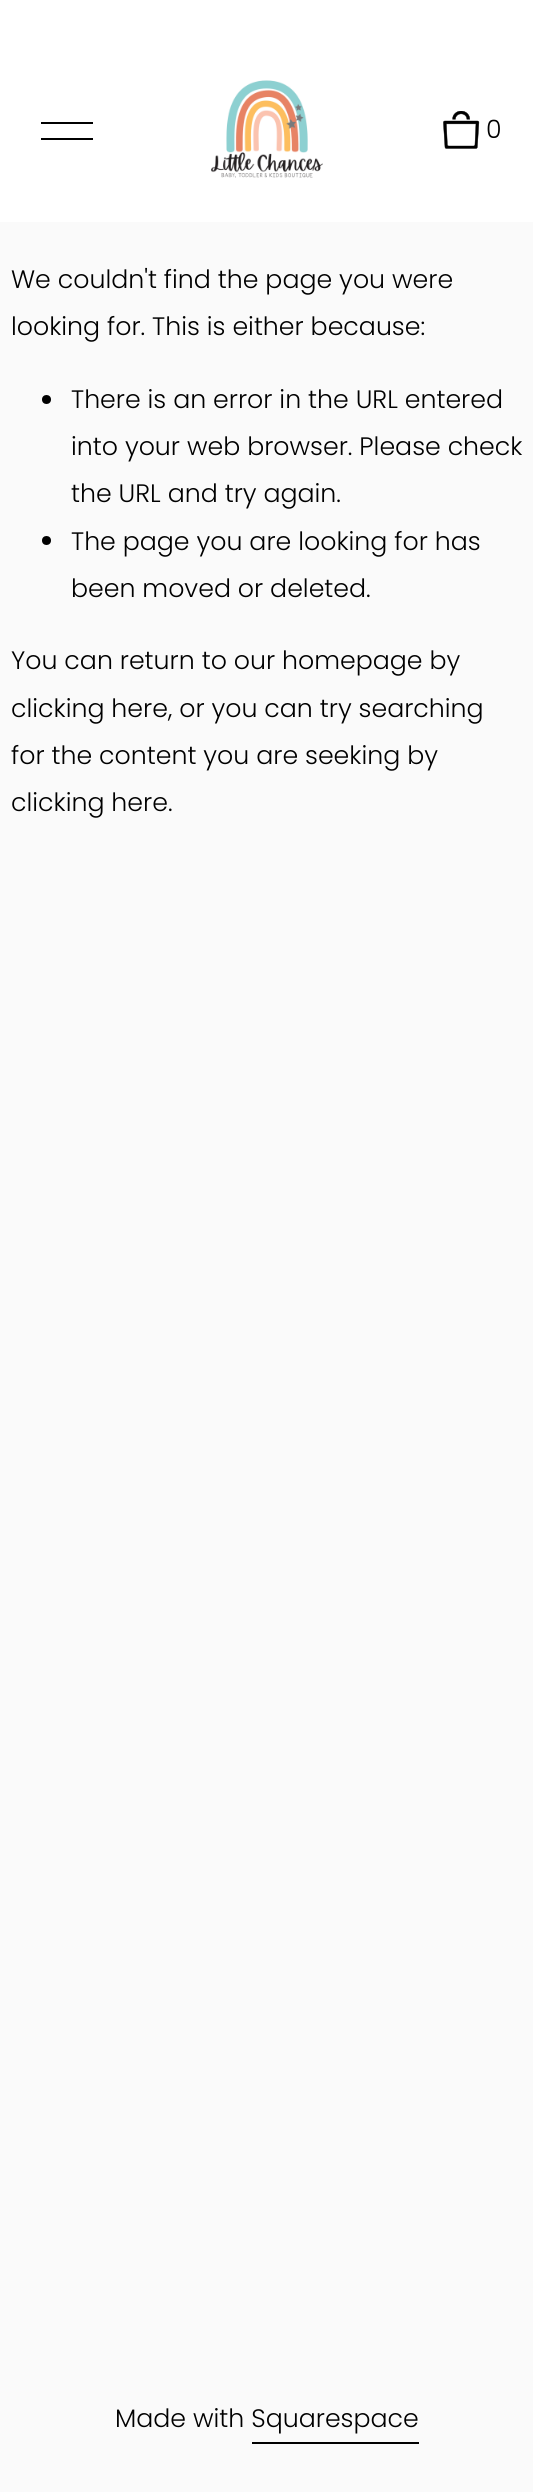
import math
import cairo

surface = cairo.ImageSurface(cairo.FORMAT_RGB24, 533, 2492)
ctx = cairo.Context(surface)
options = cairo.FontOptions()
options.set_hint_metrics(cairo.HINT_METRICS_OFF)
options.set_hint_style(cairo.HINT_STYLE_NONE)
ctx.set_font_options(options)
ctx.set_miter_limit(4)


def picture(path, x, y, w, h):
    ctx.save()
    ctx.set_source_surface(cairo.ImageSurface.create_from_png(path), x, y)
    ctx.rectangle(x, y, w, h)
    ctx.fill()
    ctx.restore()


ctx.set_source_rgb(0.98, 0.98, 0.98)
ctx.paint()
ctx.set_source_rgb(1, 1, 1)
ctx.rectangle(0, 0, 533, 222)
ctx.fill()
ctx.set_source_rgb(0, 0, 0)
ctx.rectangle(41, 122, 52, 2)
ctx.fill()
ctx.rectangle(41, 138, 52, 2)
ctx.fill()
picture("img1.png", 211, 80, 112, 98)
picture("img2.png", 443, 111, 37, 38)
ctx.select_font_face("Poppins Light")
ctx.set_font_size(25.25)
ctx.move_to(486, 138)
ctx.show_text("0")
ctx.move_to(11, 288)
ctx.show_text("We couldn't find the page you were")
ctx.move_to(11, 335)
ctx.show_text("looking for. This is either because:")
ctx.new_path()
ctx.arc(46.5, 399.5, 4.5, 0, 2 * math.pi)
ctx.fill()
ctx.move_to(71, 408)
ctx.show_text("There is an error in the URL entered")
ctx.move_to(71, 455)
ctx.show_text("into your web browser. Please check")
ctx.move_to(71, 502)
ctx.show_text("the URL and try again.")
ctx.new_path()
ctx.arc(46.5, 540.5, 4.5, 0, 2 * math.pi)
ctx.fill()
ctx.move_to(71, 550)
ctx.show_text("The page you are looking for has")
ctx.move_to(71, 597)
ctx.show_text("been moved or deleted.")
ctx.move_to(11, 669)
ctx.show_text("You can return to our homepage by")
ctx.move_to(11, 717)
ctx.show_text("clicking here, or you can try searching")
ctx.move_to(11, 764)
ctx.show_text("for the content you are seeking by")
ctx.move_to(11, 811)
ctx.show_text("clicking here.")
ctx.move_to(115, 2427)
ctx.show_text("Made with Squarespace")
ctx.rectangle(252, 2442, 167, 2)
ctx.fill()
surface.write_to_png("page.png")
